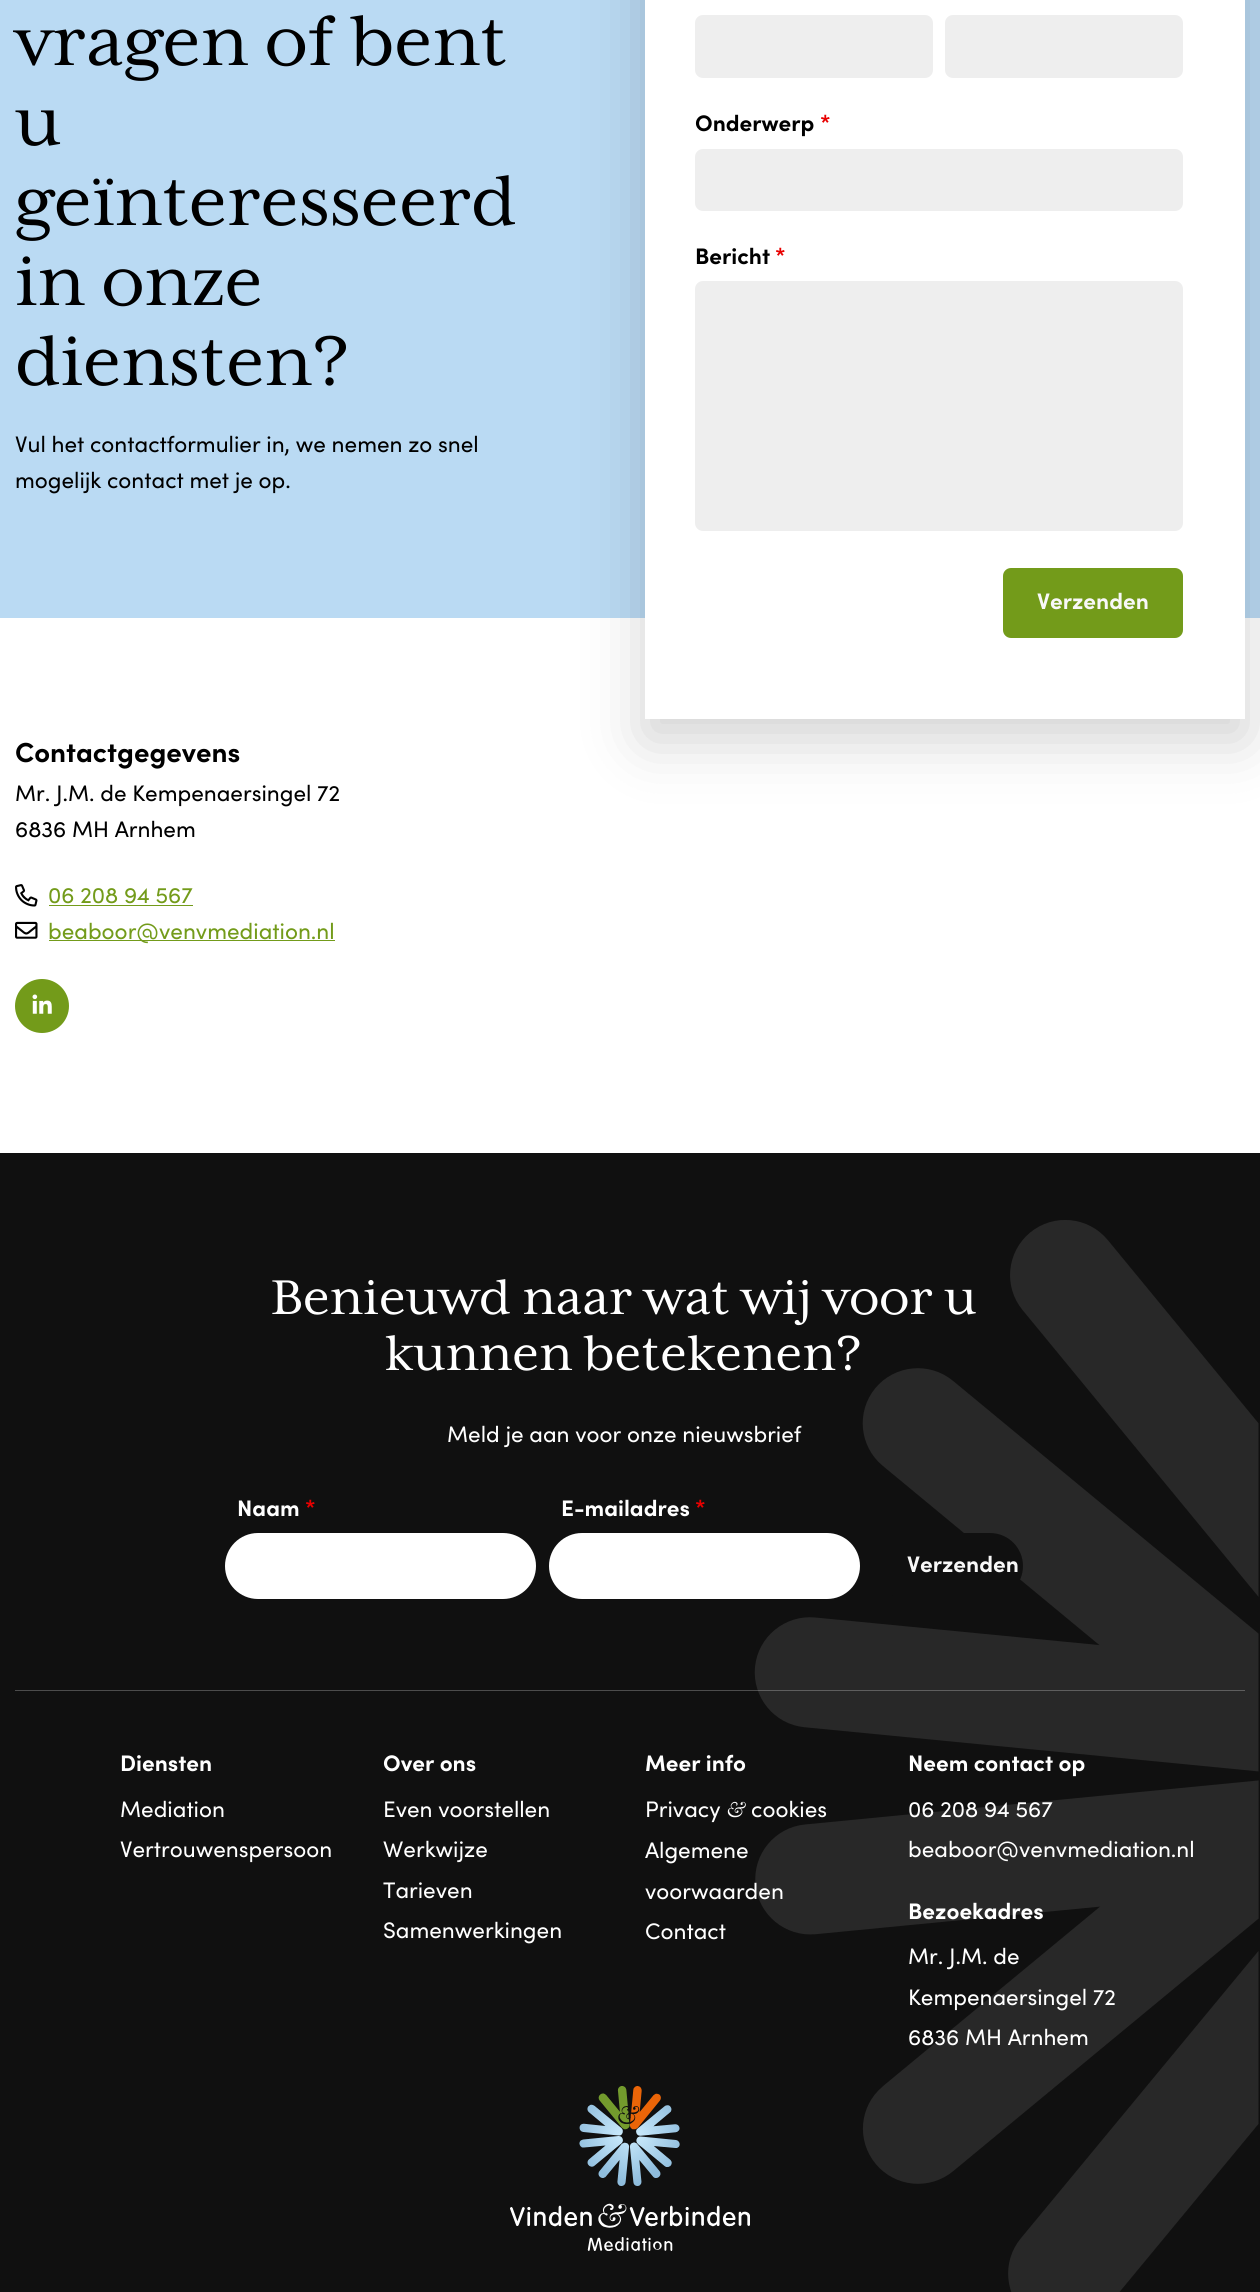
import math
import cairo

surface = cairo.ImageSurface(cairo.FORMAT_RGB24, 1260, 2292)
ctx = cairo.Context(surface)
options = cairo.FontOptions()
options.set_hint_metrics(cairo.HINT_METRICS_OFF)
options.set_hint_style(cairo.HINT_STYLE_NONE)
ctx.set_font_options(options)
ctx.set_miter_limit(4)


def round_rect(x, y, w, h, r):
    ctx.new_sub_path()
    for i, (u, v) in enumerate([(x + w - r, y + h - r), (x + r, y + h - r), (x + r, y + r), (x + w - r, y + r)]):
        ctx.arc(u, v, r, i * math.pi / 2, (i + 1) * math.pi / 2)
    ctx.close_path()


def shadow(x, y, w, h, r, blur, alpha):
    ctx.push_group_with_content(cairo.CONTENT_ALPHA)
    ctx.set_operator(cairo.OPERATOR_SOURCE)
    for i in range(15, -16, -2):
        e = blur * i / 6
        if min(w, h) + 2 * e > 0:
            ctx.set_source_rgba(0, 0, 0, alpha * math.erfc((i - 1) / 8.5) / 2)
            round_rect(x - e, y - e, w + 2 * e, h + 2 * e, max(0, min(r + e + blur * .6, min(w, h) / 2 + e)))
            ctx.fill()
    ctx.mask(ctx.pop_group())


def picture(path, x, y, w, h):
    ctx.save()
    ctx.set_source_surface(cairo.ImageSurface.create_from_png(path), x, y)
    ctx.rectangle(x, y, w, h)
    ctx.fill()
    ctx.restore()


ctx.set_source_rgb(1, 1, 1)
ctx.paint()
ctx.set_source_rgb(0.729, 0.855, 0.953)
ctx.rectangle(0, 0, 1260, 618)
ctx.fill()
ctx.select_font_face("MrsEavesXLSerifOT")
ctx.set_font_size(80)
ctx.set_source_rgb(0, 0, 0)
ctx.move_to(15, 65)
ctx.show_text("vragen of bent")
ctx.move_to(15, 145)
ctx.show_text("u")
ctx.move_to(15, 225)
ctx.show_text("geïnteresseerd")
ctx.move_to(15, 305)
ctx.show_text("in onze")
ctx.move_to(15, 385)
ctx.show_text("diensten?")
ctx.select_font_face("Sofia")
ctx.set_font_size(22.5)
ctx.move_to(15, 452)
ctx.show_text("Vul het contactformulier in, we nemen zo snel")
ctx.move_to(15, 488)
ctx.show_text("mogelijk contact met je op.")
ctx.set_source_rgb(0, 0, 0)
shadow(645, -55, 600, 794, 0, 30, 0.18)
ctx.set_source_rgb(1, 1, 1)
ctx.rectangle(645, 0, 600, 719)
ctx.fill()
ctx.set_source_rgb(0.933, 0.933, 0.933)
round_rect(695, 15, 238, 63, 8)
ctx.fill()
round_rect(945, 15, 238, 63, 8)
ctx.fill()
ctx.select_font_face("Sofia", cairo.FONT_SLANT_NORMAL, cairo.FONT_WEIGHT_BOLD)
ctx.set_source_rgb(0, 0, 0)
ctx.move_to(695, 131)
ctx.show_text("Onderwerp")
ctx.set_source_rgb(0.91, 0, 0)
ctx.move_to(820, 131)
ctx.show_text("*")
ctx.set_source_rgb(0.933, 0.933, 0.933)
round_rect(695, 149, 488, 62, 8)
ctx.fill()
ctx.set_source_rgb(0, 0, 0)
ctx.move_to(695, 264)
ctx.show_text("Bericht")
ctx.set_source_rgb(0.91, 0, 0)
ctx.move_to(775, 264)
ctx.show_text("*")
ctx.set_source_rgb(0.933, 0.933, 0.933)
round_rect(695, 281, 488, 250, 8)
ctx.fill()
ctx.set_source_rgb(0.451, 0.608, 0.102)
round_rect(1003, 568, 180, 70, 8)
ctx.fill()
ctx.set_source_rgb(0.969, 0.969, 0.969)
ctx.move_to(1037, 609)
ctx.show_text("Verzenden")
ctx.set_font_size(27.5)
ctx.set_source_rgb(0, 0, 0)
ctx.move_to(15, 762)
ctx.show_text("Contactgegevens")
ctx.select_font_face("Sofia")
ctx.set_font_size(22.5)
ctx.move_to(15, 801)
ctx.show_text("Mr. J.M. de Kempenaersingel 72")
ctx.move_to(15, 837)
ctx.show_text("6836 MH Arnhem")
picture("img1.png", 15, 884, 23, 23)
ctx.set_source_rgb(0.451, 0.608, 0.102)
ctx.move_to(48, 903)
ctx.show_text("06 208 94 567")
ctx.rectangle(49, 905, 144, 1)
ctx.fill()
picture("img2.png", 15, 921, 23, 18)
ctx.rectangle(49, 940, 286, 1)
ctx.fill()
ctx.move_to(48, 939)
ctx.show_text("beaboor@venvmediation.nl")
ctx.new_path()
ctx.arc(42, 1006, 27, 0, 2 * math.pi)
ctx.fill()
picture("img3.png", 32, 994, 20, 20)
ctx.set_source_rgb(0.063, 0.063, 0.063)
ctx.rectangle(0, 1153, 1260, 1139)
ctx.fill()
picture("img4.png", 754, 1220, 505, 1072)
ctx.select_font_face("MrsEavesXLSerifOT")
ctx.set_font_size(56)
ctx.set_source_rgb(1, 1, 1)
ctx.move_to(271, 1314)
ctx.show_text("Benieuwd naar wat wij voor u")
ctx.move_to(385, 1370)
ctx.show_text("kunnen betekenen?")
ctx.select_font_face("Sofia")
ctx.set_font_size(22.5)
ctx.move_to(447, 1442)
ctx.show_text("Meld je aan voor onze nieuwsbrief")
ctx.select_font_face("Sofia", cairo.FONT_SLANT_NORMAL, cairo.FONT_WEIGHT_BOLD)
ctx.move_to(237, 1516)
ctx.show_text("Naam")
ctx.set_source_rgb(0.91, 0, 0)
ctx.move_to(305, 1516)
ctx.show_text("*")
ctx.set_source_rgb(1, 1, 1)
round_rect(225, 1533, 311, 66, 33)
ctx.fill()
ctx.move_to(561, 1516)
ctx.show_text("E-mailadres")
ctx.set_source_rgb(0.91, 0, 0)
ctx.move_to(695, 1516)
ctx.show_text("*")
ctx.set_source_rgb(1, 1, 1)
round_rect(549, 1533, 311, 66, 33)
ctx.fill()
ctx.set_source_rgb(0.063, 0.063, 0.063)
round_rect(873, 1533, 150, 66, 33)
ctx.fill()
ctx.set_source_rgb(0.969, 0.969, 0.969)
ctx.move_to(907, 1572)
ctx.show_text("Verzenden")
ctx.set_source_rgba(1, 1, 1, 0.25)
ctx.rectangle(15, 1690, 1230, 1)
ctx.fill()
ctx.set_source_rgb(1, 1, 1)
ctx.move_to(120, 1771)
ctx.show_text("Diensten")
ctx.select_font_face("Sofia")
ctx.move_to(120, 1817)
ctx.show_text("Mediation")
ctx.move_to(120, 1857)
ctx.show_text("Vertrouwenspersoon")
ctx.select_font_face("Sofia", cairo.FONT_SLANT_NORMAL, cairo.FONT_WEIGHT_BOLD)
ctx.move_to(383, 1771)
ctx.show_text("Over ons")
ctx.select_font_face("Sofia")
ctx.move_to(383, 1817)
ctx.show_text("Even voorstellen")
ctx.move_to(383, 1857)
ctx.show_text("Werkwijze")
ctx.move_to(383, 1898)
ctx.show_text("Tarieven")
ctx.move_to(383, 1938)
ctx.show_text("Samenwerkingen")
ctx.select_font_face("Sofia", cairo.FONT_SLANT_NORMAL, cairo.FONT_WEIGHT_BOLD)
ctx.move_to(645, 1771)
ctx.show_text("Meer info")
ctx.select_font_face("Sofia")
ctx.move_to(645, 1817)
ctx.show_text("Privacy")
ctx.select_font_face("Baskerville", cairo.FONT_SLANT_ITALIC)
ctx.move_to(726, 1817)
ctx.show_text("&")
ctx.select_font_face("Sofia")
ctx.move_to(751, 1817)
ctx.show_text("cookies")
ctx.move_to(645, 1858)
ctx.show_text("Algemene")
ctx.move_to(645, 1899)
ctx.show_text("voorwaarden")
ctx.move_to(645, 1939)
ctx.show_text("Contact")
ctx.select_font_face("Sofia", cairo.FONT_SLANT_NORMAL, cairo.FONT_WEIGHT_BOLD)
ctx.move_to(908, 1771)
ctx.show_text("Neem contact op")
ctx.select_font_face("Sofia")
ctx.move_to(908, 1817)
ctx.show_text("06 208 94 567")
ctx.move_to(908, 1857)
ctx.show_text("beaboor@venvmediation.nl")
ctx.select_font_face("Sofia", cairo.FONT_SLANT_NORMAL, cairo.FONT_WEIGHT_BOLD)
ctx.move_to(908, 1919)
ctx.show_text("Bezoekadres")
ctx.select_font_face("Sofia")
ctx.move_to(908, 1964)
ctx.show_text("Mr. J.M. de")
ctx.move_to(908, 2005)
ctx.show_text("Kempenaersingel 72")
ctx.move_to(908, 2045)
ctx.show_text("6836 MH Arnhem")
picture("img5.png", 510, 2086, 240, 165)
surface.write_to_png("page.png")
